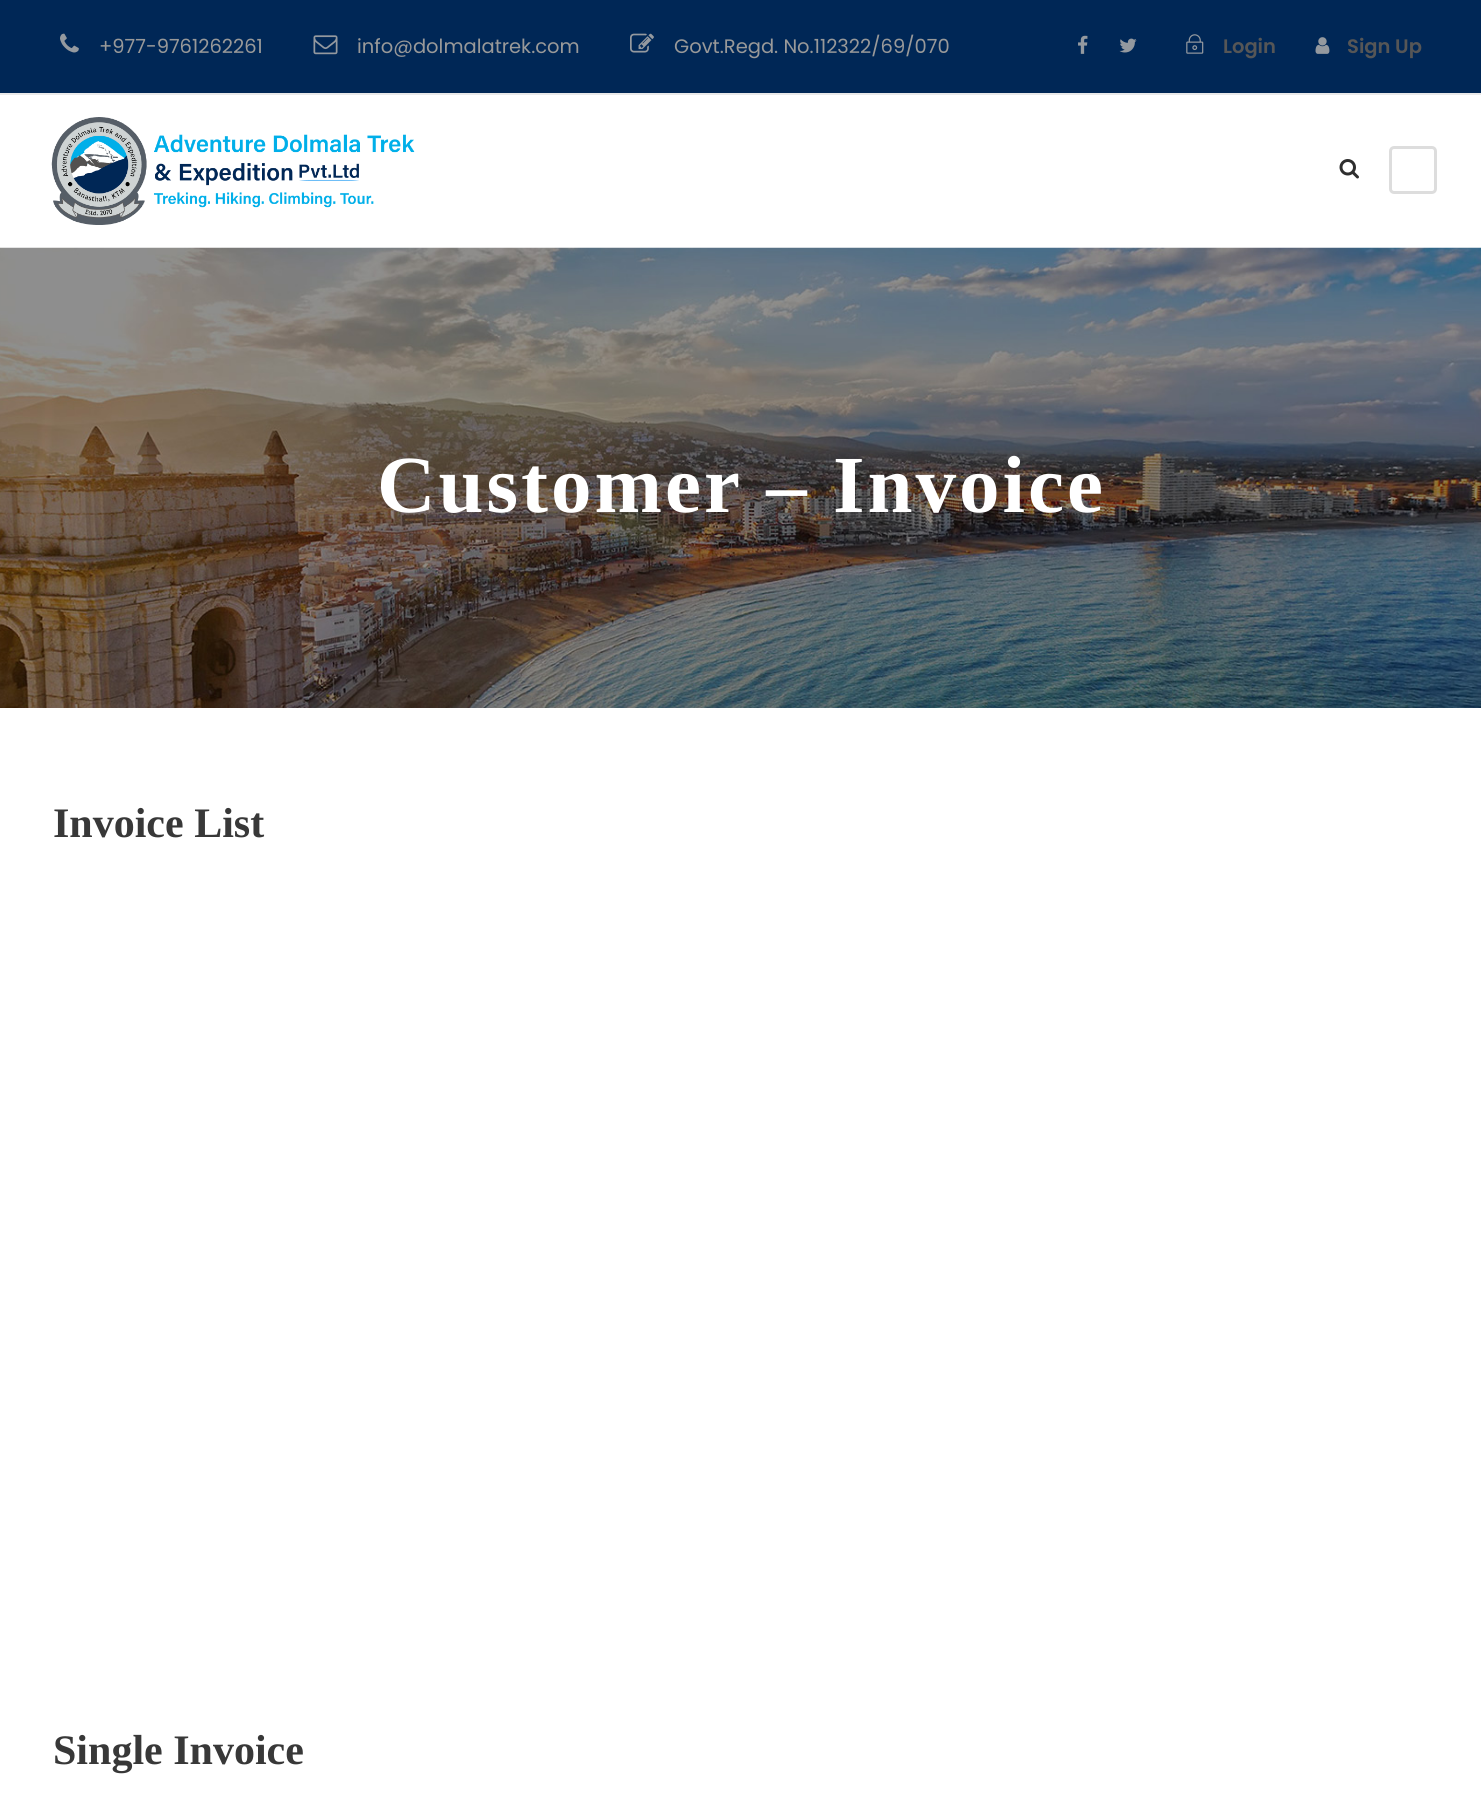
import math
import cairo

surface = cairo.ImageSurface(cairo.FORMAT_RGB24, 1481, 1809)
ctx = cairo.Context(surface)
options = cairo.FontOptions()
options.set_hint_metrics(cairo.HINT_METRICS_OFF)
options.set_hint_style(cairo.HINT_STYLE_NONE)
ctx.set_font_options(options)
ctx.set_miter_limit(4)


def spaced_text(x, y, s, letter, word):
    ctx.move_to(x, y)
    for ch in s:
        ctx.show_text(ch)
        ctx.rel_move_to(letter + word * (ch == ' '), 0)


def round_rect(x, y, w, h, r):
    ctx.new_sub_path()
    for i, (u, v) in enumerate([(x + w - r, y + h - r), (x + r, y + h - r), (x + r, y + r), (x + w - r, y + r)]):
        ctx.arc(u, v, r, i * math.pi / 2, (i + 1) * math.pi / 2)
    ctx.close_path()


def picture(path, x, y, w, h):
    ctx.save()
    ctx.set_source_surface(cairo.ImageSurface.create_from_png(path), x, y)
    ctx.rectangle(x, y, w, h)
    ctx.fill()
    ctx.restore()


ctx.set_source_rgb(1, 1, 1)
ctx.paint()
ctx.set_source_rgb(0.914, 0.914, 0.914)
ctx.rectangle(0, 93, 1481, 2)
ctx.fill()
ctx.set_source_rgb(0, 0.153, 0.337)
ctx.rectangle(0, 0, 1481, 93)
ctx.fill()
picture("img1.png", 60, 33, 19, 20)
ctx.select_font_face("Poppins")
ctx.set_font_size(19.5)
ctx.set_source_rgb(0.6, 0.6, 0.6)
ctx.move_to(99, 53)
ctx.show_text("+977-9761262261")
picture("img2.png", 313, 35, 25, 20)
ctx.move_to(357, 53)
ctx.show_text("info@dolmalatrek.com")
picture("img3.png", 630, 33, 24, 20)
ctx.move_to(674, 53)
ctx.show_text("Govt.Regd. No.112322/69/070")
picture("img4.png", 1078, 35, 10, 19)
picture("img5.png", 1119, 38, 18, 15)
picture("img6.png", 1186, 34, 18, 20)
ctx.select_font_face("Poppins SemiBold")
ctx.set_source_rgb(0.337, 0.337, 0.337)
ctx.move_to(1223, 53)
ctx.show_text("Login")
picture("img7.png", 1315, 37, 15, 17)
ctx.move_to(1347, 53)
ctx.show_text("Sign Up")
picture("img8.png", 51, 117, 364, 108)
picture("img9.png", 1339, 159, 20, 20)
round_rect(1390.5, 147.5, 45, 45, 3.5)
ctx.set_source_rgb(0.867, 0.867, 0.867)
ctx.set_line_width(3)
ctx.stroke()
picture("img10.png", 0, 247, 1481, 461)
ctx.select_font_face("Liberation Serif", cairo.FONT_SLANT_NORMAL, cairo.FONT_WEIGHT_BOLD)
ctx.set_font_size(81)
ctx.set_source_rgb(1, 1, 1)
spaced_text(377, 512, "Customer – Invoice", 3, 0)
ctx.set_font_size(42)
ctx.set_source_rgb(0.22, 0.22, 0.22)
ctx.move_to(53, 837)
ctx.show_text("Invoice List")
ctx.move_to(53, 1764)
ctx.show_text("Single Invoice")
surface.write_to_png("page.png")
